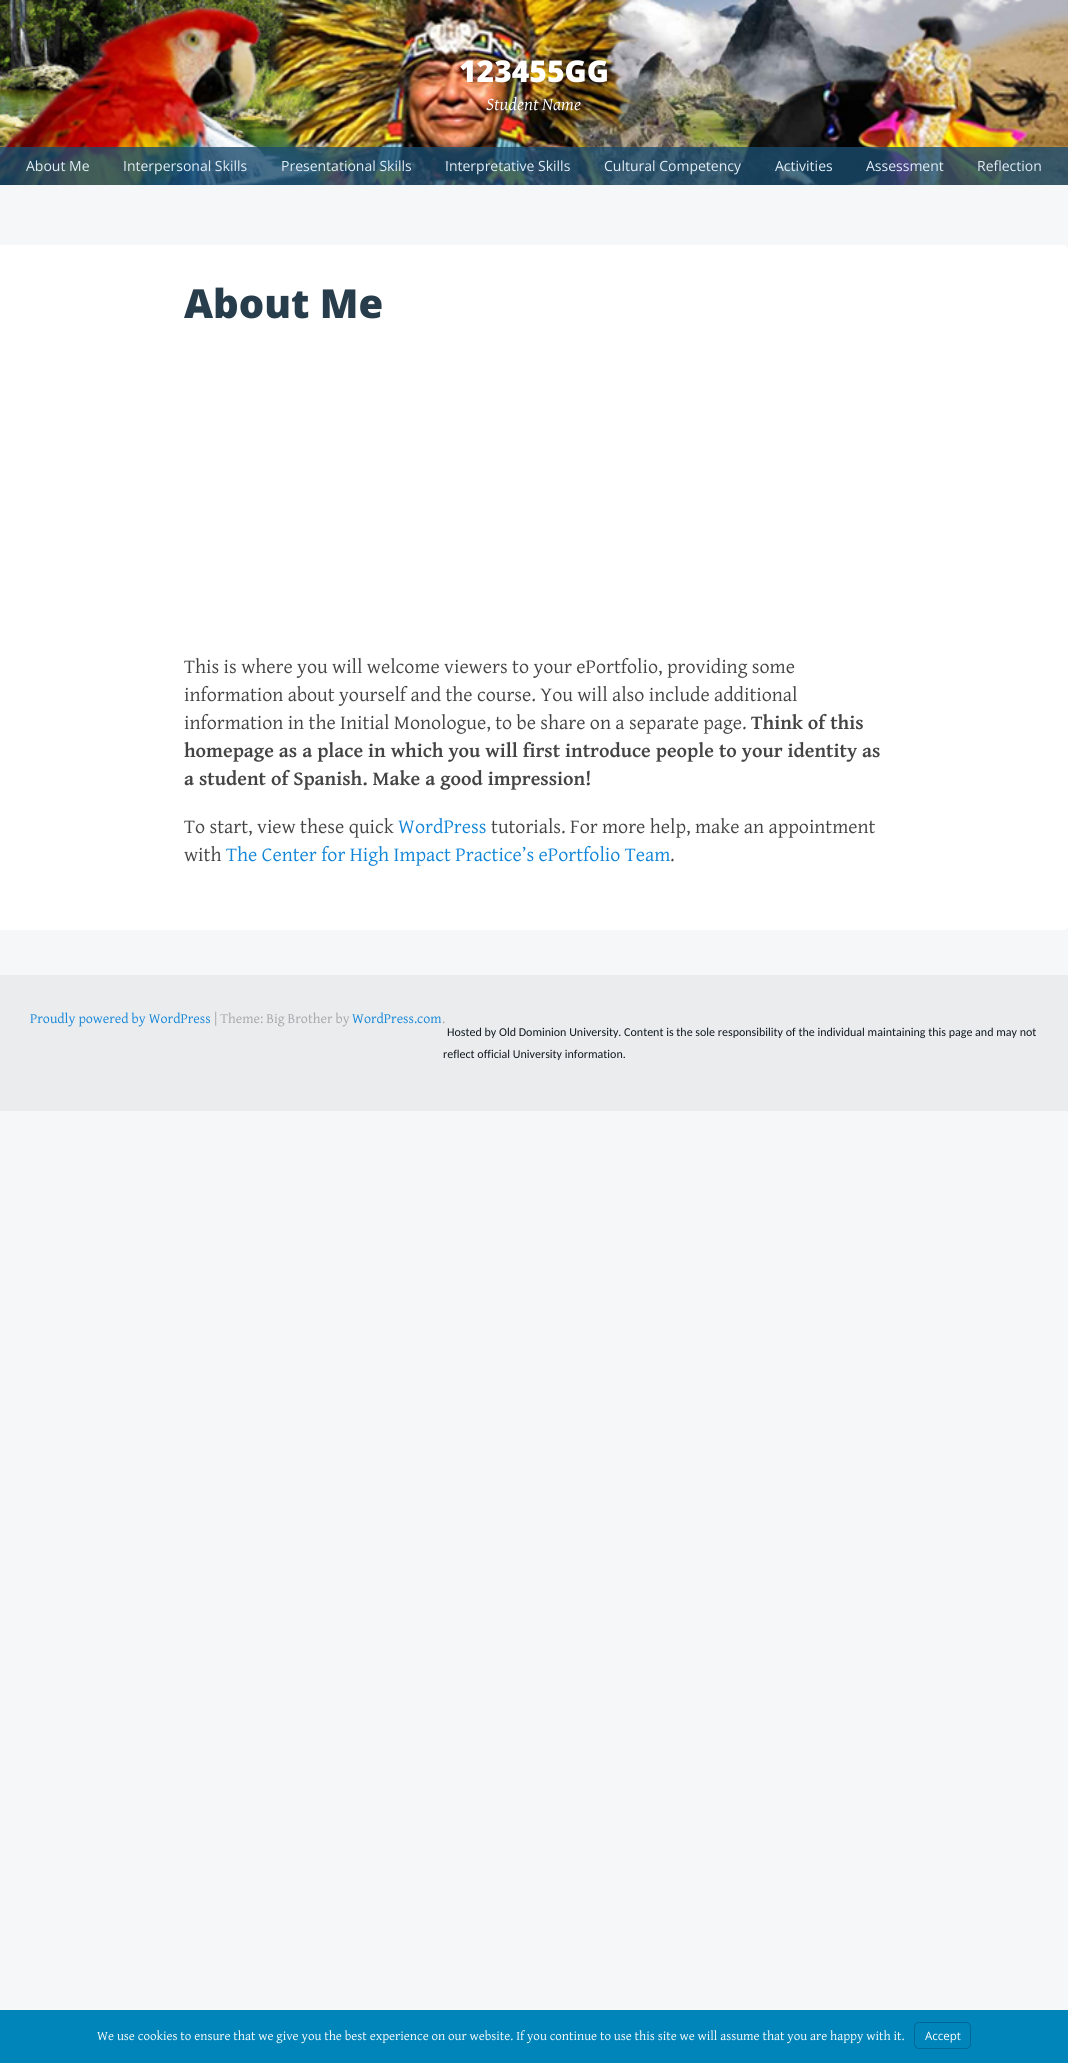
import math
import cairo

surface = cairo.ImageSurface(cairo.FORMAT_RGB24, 1068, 2063)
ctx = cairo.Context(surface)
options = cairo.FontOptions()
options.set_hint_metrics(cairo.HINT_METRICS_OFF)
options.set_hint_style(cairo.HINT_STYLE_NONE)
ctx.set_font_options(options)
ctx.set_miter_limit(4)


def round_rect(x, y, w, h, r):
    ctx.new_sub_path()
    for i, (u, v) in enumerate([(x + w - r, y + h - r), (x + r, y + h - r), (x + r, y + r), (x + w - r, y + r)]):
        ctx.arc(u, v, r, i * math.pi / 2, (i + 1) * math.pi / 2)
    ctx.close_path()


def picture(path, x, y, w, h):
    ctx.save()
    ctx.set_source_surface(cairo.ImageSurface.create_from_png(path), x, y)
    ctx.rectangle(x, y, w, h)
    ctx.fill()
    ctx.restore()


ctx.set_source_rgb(0.961, 0.965, 0.969)
ctx.paint()
picture("img1.png", 0, 0, 1068, 185)
ctx.select_font_face("Open Sans ExtraBold")
ctx.set_font_size(30)
ctx.set_source_rgb(1, 1, 1)
ctx.move_to(459, 82)
ctx.show_text("123455GG")
ctx.select_font_face("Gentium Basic", cairo.FONT_SLANT_ITALIC)
ctx.set_font_size(18)
ctx.move_to(486, 110)
ctx.show_text("Student Name")
ctx.set_source_rgba(0.106, 0.294, 0.427, 0.8)
ctx.rectangle(0, 147, 1068, 38)
ctx.fill()
ctx.select_font_face("Open Sans")
ctx.set_font_size(14)
ctx.set_source_rgb(0.886, 0.933, 0.969)
ctx.move_to(26, 171)
ctx.show_text("About Me")
ctx.move_to(123, 171)
ctx.show_text("Interpersonal Skills")
ctx.move_to(281, 171)
ctx.show_text("Presentational Skills")
ctx.move_to(445, 171)
ctx.show_text("Interpretative Skills")
ctx.move_to(604, 171)
ctx.show_text("Cultural Competency")
ctx.move_to(775, 171)
ctx.show_text("Activities")
ctx.move_to(866, 171)
ctx.show_text("Assessment")
ctx.move_to(977, 171)
ctx.show_text("Reflection")
ctx.set_source_rgb(1, 1, 1)
ctx.new_path()
ctx.move_to(0, 245)
ctx.line_to(1063, 245)
ctx.curve_to(1066, 245, 1068, 247, 1068, 250)
ctx.line_to(1068, 925)
ctx.curve_to(1068, 928, 1066, 930, 1063, 930)
ctx.line_to(0, 930)
ctx.close_path()
ctx.fill()
ctx.select_font_face("Open Sans ExtraBold")
ctx.set_font_size(40)
ctx.set_source_rgb(0.157, 0.239, 0.294)
ctx.move_to(184, 318)
ctx.show_text("About Me")
ctx.select_font_face("Gentium Basic")
ctx.set_font_size(20)
ctx.set_source_rgb(0.267, 0.267, 0.267)
ctx.move_to(184, 673)
ctx.show_text("This is where you will welcome viewers to your ePortfolio, providing some")
ctx.move_to(184, 701)
ctx.show_text("information about yourself and the course. You will also include additional")
ctx.move_to(184, 729)
ctx.show_text("information in the Initial Monologue, to be share on a separate page.")
ctx.select_font_face("Gentium Basic", cairo.FONT_SLANT_NORMAL, cairo.FONT_WEIGHT_BOLD)
ctx.move_to(751, 729)
ctx.show_text("Think of this")
ctx.move_to(184, 757)
ctx.show_text("homepage as a place in which you will first introduce people to your identity as")
ctx.move_to(184, 785)
ctx.show_text("a student of Spanish. Make a good impression!")
ctx.select_font_face("Gentium Basic")
ctx.move_to(184, 833)
ctx.show_text("To start, view these quick")
ctx.set_source_rgb(0.067, 0.522, 0.843)
ctx.move_to(398, 833)
ctx.show_text("WordPress")
ctx.set_source_rgb(0.267, 0.267, 0.267)
ctx.move_to(491, 833)
ctx.show_text("tutorials. For more help, make an appointment")
ctx.move_to(184, 861)
ctx.show_text("with")
ctx.set_source_rgb(0.067, 0.522, 0.843)
ctx.move_to(226, 861)
ctx.show_text("The Center for High Impact Practice’s ePortfolio Team")
ctx.set_source_rgb(0.267, 0.267, 0.267)
ctx.move_to(670, 861)
ctx.show_text(".")
ctx.set_source_rgb(0.918, 0.925, 0.933)
ctx.rectangle(0, 975, 1068, 136)
ctx.fill()
ctx.set_font_size(14)
ctx.set_source_rgb(0.067, 0.522, 0.843)
ctx.move_to(30, 1023)
ctx.show_text("Proudly powered by WordPress")
ctx.set_source_rgb(0.643, 0.647, 0.655)
ctx.move_to(214, 1023)
ctx.show_text("| Theme: Big Brother by")
ctx.set_source_rgb(0.067, 0.522, 0.843)
ctx.move_to(352, 1023)
ctx.show_text("WordPress.com")
ctx.set_source_rgb(0.643, 0.647, 0.655)
ctx.move_to(442, 1023)
ctx.show_text(".")
ctx.select_font_face("Carlito")
ctx.set_font_size(12)
ctx.set_source_rgb(0.063, 0.094, 0.125)
ctx.move_to(447, 1036)
ctx.show_text("Hosted by Old Dominion University. Content is the sole responsibility of the individual maintaining this page and may not")
ctx.move_to(443, 1058)
ctx.show_text("reflect official University information.")
ctx.set_source_rgb(0, 0.522, 0.729)
ctx.rectangle(0, 2010, 1068, 53)
ctx.fill()
ctx.select_font_face("Gentium Basic")
ctx.set_font_size(13)
ctx.set_source_rgb(1, 1, 1)
ctx.move_to(97, 2040)
ctx.show_text("We use cookies to ensure that we give you the best experience on our website. If you continue to use this site we will assume that you are happy with it.")
round_rect(914.5, 2022.5, 56, 26, 4.5)
ctx.set_source_rgb(0, 0.404, 0.6)
ctx.set_line_width(1)
ctx.stroke()
ctx.select_font_face("Open Sans")
ctx.set_font_size(11.5)
ctx.set_source_rgb(1, 1, 1)
ctx.move_to(925, 2040)
ctx.show_text("Accept")
surface.write_to_png("page.png")
